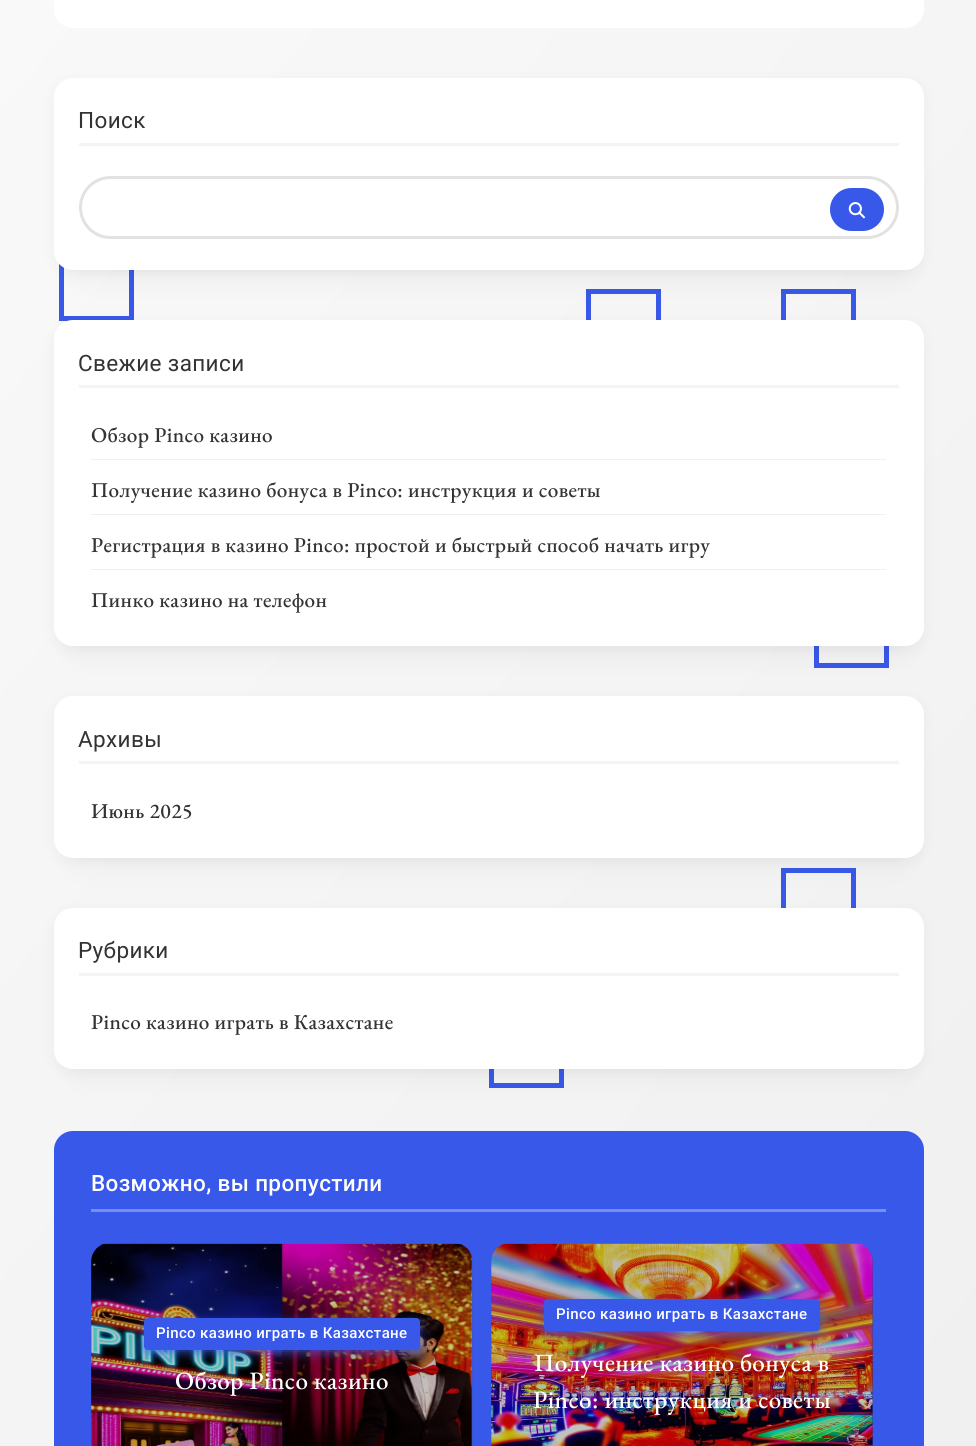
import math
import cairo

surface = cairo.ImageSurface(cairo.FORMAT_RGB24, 976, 1446)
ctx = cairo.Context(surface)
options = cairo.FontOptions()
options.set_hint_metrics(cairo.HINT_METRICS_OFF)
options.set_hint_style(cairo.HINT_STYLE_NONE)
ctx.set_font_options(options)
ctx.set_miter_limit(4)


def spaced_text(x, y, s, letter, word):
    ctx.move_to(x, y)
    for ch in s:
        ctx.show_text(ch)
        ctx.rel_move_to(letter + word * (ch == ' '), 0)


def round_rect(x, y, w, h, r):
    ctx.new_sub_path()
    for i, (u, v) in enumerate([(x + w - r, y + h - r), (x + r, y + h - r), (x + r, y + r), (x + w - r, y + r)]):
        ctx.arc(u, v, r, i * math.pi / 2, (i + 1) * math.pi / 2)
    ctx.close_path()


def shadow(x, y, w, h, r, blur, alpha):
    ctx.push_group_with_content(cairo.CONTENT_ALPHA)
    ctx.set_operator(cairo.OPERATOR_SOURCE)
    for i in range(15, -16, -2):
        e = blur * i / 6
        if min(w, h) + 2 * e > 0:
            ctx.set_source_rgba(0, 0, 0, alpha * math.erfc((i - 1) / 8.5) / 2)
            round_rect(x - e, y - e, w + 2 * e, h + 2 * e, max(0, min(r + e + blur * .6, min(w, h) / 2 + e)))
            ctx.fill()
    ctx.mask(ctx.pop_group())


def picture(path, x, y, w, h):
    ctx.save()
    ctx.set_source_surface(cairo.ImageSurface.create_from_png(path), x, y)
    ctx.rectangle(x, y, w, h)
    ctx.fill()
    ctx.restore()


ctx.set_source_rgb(1, 1, 1)
ctx.paint()
gradient = cairo.LinearGradient(-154, 184, 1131, 1262)
gradient.add_color_stop_rgba(0, 0.976, 0.976, 0.976, 1)
gradient.add_color_stop_rgba(1, 0.941, 0.941, 0.941, 1)
ctx.set_source(gradient)
ctx.rectangle(0, 0, 976, 1446)
ctx.fill()
ctx.set_source_rgb(1, 1, 1)
round_rect(54, -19, 870, 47, 19)
ctx.fill()
ctx.rectangle(61.5, 248.5, 70, 70)
ctx.set_source_rgb(0.22, 0.345, 0.914)
ctx.set_line_width(5)
ctx.stroke()
ctx.rectangle(588.5, 291.5, 70, 70)
ctx.stroke()
ctx.rectangle(783.5, 291.5, 70, 70)
ctx.stroke()
ctx.set_source_rgb(0.027, 0.039, 0.098)
shadow(79, 130, 820, 143, 0, 17, 0.05)
shadow(55, 83, 868, 190, 18, 7.5, 0.05)
ctx.set_source_rgb(1, 1, 1)
round_rect(54, 78, 870, 192, 19)
ctx.fill()
ctx.set_source_rgb(0.957, 0.957, 0.957)
ctx.rectangle(79, 143, 820, 3)
ctx.fill()
ctx.select_font_face("Roboto")
ctx.set_font_size(22.5)
ctx.set_source_rgb(0.2, 0.2, 0.2)
spaced_text(78, 128, "Поиск", 0.38, 0)
round_rect(80.5, 177.5, 817, 60, 30)
ctx.set_source_rgb(0.886, 0.886, 0.886)
ctx.set_line_width(3)
ctx.stroke()
ctx.set_source_rgb(0.22, 0.345, 0.914)
round_rect(830, 188, 54, 43, 21.5)
ctx.fill()
picture("img1.png", 848, 202, 17, 17)
ctx.rectangle(816.5, 595.5, 70, 70)
ctx.set_line_width(5)
ctx.stroke()
ctx.set_source_rgb(0.027, 0.039, 0.098)
shadow(79, 373, 820, 276, 0, 17, 0.05)
shadow(55, 325, 868, 324, 18, 7.5, 0.05)
ctx.set_source_rgb(1, 1, 1)
round_rect(54, 320, 870, 326, 19)
ctx.fill()
ctx.set_source_rgb(0.957, 0.957, 0.957)
ctx.rectangle(79, 385, 820, 3)
ctx.fill()
ctx.set_source_rgb(0.2, 0.2, 0.2)
spaced_text(78, 371, "Свежие записи", 0.38, 0)
ctx.set_source_rgb(0.941, 0.941, 0.941)
ctx.rectangle(91, 459, 795, 1)
ctx.fill()
ctx.select_font_face("EB Garamond Medium")
ctx.set_font_size(21.15)
ctx.set_source_rgb(0.2, 0.2, 0.2)
spaced_text(91, 442, "Обзор Pinco казино", 0.38, 0)
ctx.set_source_rgb(0.941, 0.941, 0.941)
ctx.rectangle(91, 514, 795, 1)
ctx.fill()
ctx.set_source_rgb(0.2, 0.2, 0.2)
spaced_text(91, 497, "Получение казино бонуса в Pinco: инструкция и советы", 0.38, 0)
ctx.set_source_rgb(0.941, 0.941, 0.941)
ctx.rectangle(91, 569, 795, 1)
ctx.fill()
ctx.set_source_rgb(0.2, 0.2, 0.2)
spaced_text(91, 552, "Регистрация в казино Pinco: простой и быстрый способ начать игру", 0.38, 0)
spaced_text(91, 607, "Пинко казино на телефон", 0.38, 0)
ctx.rectangle(783.5, 870.5, 70, 70)
ctx.set_source_rgb(0.22, 0.345, 0.914)
ctx.stroke()
ctx.set_source_rgb(0.027, 0.039, 0.098)
shadow(79, 749, 820, 111, 0, 17, 0.05)
shadow(55, 701, 868, 159, 18, 7.5, 0.05)
ctx.set_source_rgb(1, 1, 1)
round_rect(54, 696, 870, 162, 19)
ctx.fill()
ctx.set_source_rgb(0.957, 0.957, 0.957)
ctx.rectangle(79, 761, 820, 3)
ctx.fill()
ctx.select_font_face("Roboto")
ctx.set_font_size(22.5)
ctx.set_source_rgb(0.2, 0.2, 0.2)
spaced_text(78, 747, "Архивы", 0.38, 0)
ctx.select_font_face("EB Garamond Medium")
ctx.set_font_size(21.15)
spaced_text(91, 818, "Июнь 2025", 0.38, 0)
ctx.rectangle(491.5, 1015.5, 70, 70)
ctx.set_source_rgb(0.22, 0.345, 0.914)
ctx.stroke()
ctx.set_source_rgb(0.027, 0.039, 0.098)
shadow(79, 960, 820, 111, 0, 17, 0.05)
shadow(55, 913, 868, 158, 18, 7.5, 0.05)
ctx.set_source_rgb(1, 1, 1)
round_rect(54, 908, 870, 161, 19)
ctx.fill()
ctx.set_source_rgb(0.957, 0.957, 0.957)
ctx.rectangle(79, 973, 820, 3)
ctx.fill()
ctx.select_font_face("Roboto")
ctx.set_font_size(22.5)
ctx.set_source_rgb(0.2, 0.2, 0.2)
spaced_text(78, 958, "Рубрики", 0.38, 0)
ctx.select_font_face("EB Garamond Medium")
ctx.set_font_size(21.15)
spaced_text(91, 1029, "Pinco казино играть в Казахстане", 0.38, 0)
ctx.set_source_rgb(0.22, 0.345, 0.914)
round_rect(54, 1131, 870, 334, 19)
ctx.fill()
ctx.set_source_rgb(0.478, 0.561, 0.929)
ctx.rectangle(91, 1209, 795, 3)
ctx.fill()
ctx.select_font_face("Roboto Medium")
ctx.set_font_size(22.5)
ctx.set_source_rgb(1, 1, 1)
spaced_text(91, 1191, "Возможно, вы пропустили", 0.38, 0)
ctx.save()
round_rect(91, 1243, 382, 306, 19)
ctx.clip()
ctx.set_source_rgb(0.29, 0.302, 0.329)
shadow(90, 1250, 381, 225, 0, 9.5, 0.33)
ctx.restore()
picture("img2.png", 91, 1243, 381, 203)
ctx.save()
round_rect(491, 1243, 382, 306, 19)
ctx.clip()
ctx.set_source_rgb(0.29, 0.302, 0.329)
shadow(490, 1250, 383, 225, 0, 9.5, 0.33)
ctx.restore()
ctx.save()
round_rect(91, 1243, 382, 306, 19)
ctx.clip()
ctx.set_source_rgba(0, 0, 0, 0.23)
ctx.new_path()
ctx.move_to(91, 1244)
ctx.line_to(471, 1244)
ctx.line_to(471, 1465)
ctx.line_to(110, 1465)
ctx.curve_to(99.5, 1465, 91, 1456.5, 91, 1446)
ctx.close_path()
ctx.fill()
ctx.restore()
ctx.set_source_rgb(0.22, 0.345, 0.914)
shadow(146, 1324, 272, 27, 1, 6, 1)
ctx.set_source_rgb(0.22, 0.345, 0.914)
round_rect(144, 1318, 276, 32, 4)
ctx.fill()
ctx.set_font_size(15)
ctx.set_source_rgb(1, 1, 1)
spaced_text(156, 1338, "Pinco казино играть в Казахстане", 0.38, 0)
ctx.select_font_face("EB Garamond Medium")
ctx.set_font_size(25)
spaced_text(175, 1389, "Обзор Pinco казино", 0.38, 0)
picture("img3.png", 491, 1243, 382, 203)
ctx.save()
round_rect(491, 1243, 382, 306, 19)
ctx.clip()
ctx.set_source_rgba(0, 0, 0, 0.23)
ctx.new_path()
ctx.move_to(491, 1244)
ctx.line_to(873, 1244)
ctx.line_to(873, 1446)
ctx.curve_to(873, 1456.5, 864.5, 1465, 854, 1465)
ctx.line_to(510, 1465)
ctx.curve_to(499.5, 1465, 491, 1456.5, 491, 1446)
ctx.close_path()
ctx.fill()
ctx.restore()
ctx.set_source_rgb(0.22, 0.345, 0.914)
shadow(546, 1305, 272, 28, 1, 6, 1)
ctx.set_source_rgb(0.22, 0.345, 0.914)
round_rect(544, 1299, 276, 32, 4)
ctx.fill()
ctx.select_font_face("Roboto Medium")
ctx.set_font_size(15)
ctx.set_source_rgb(1, 1, 1)
spaced_text(556, 1319, "Pinco казино играть в Казахстане", 0.38, 0)
ctx.select_font_face("EB Garamond Medium")
ctx.set_font_size(25)
spaced_text(534, 1371, "Получение казино бонуса в", 0.38, 0)
spaced_text(533, 1408, "Pinco: инструкция и советы", 0.38, 0)
surface.write_to_png("page.png")
